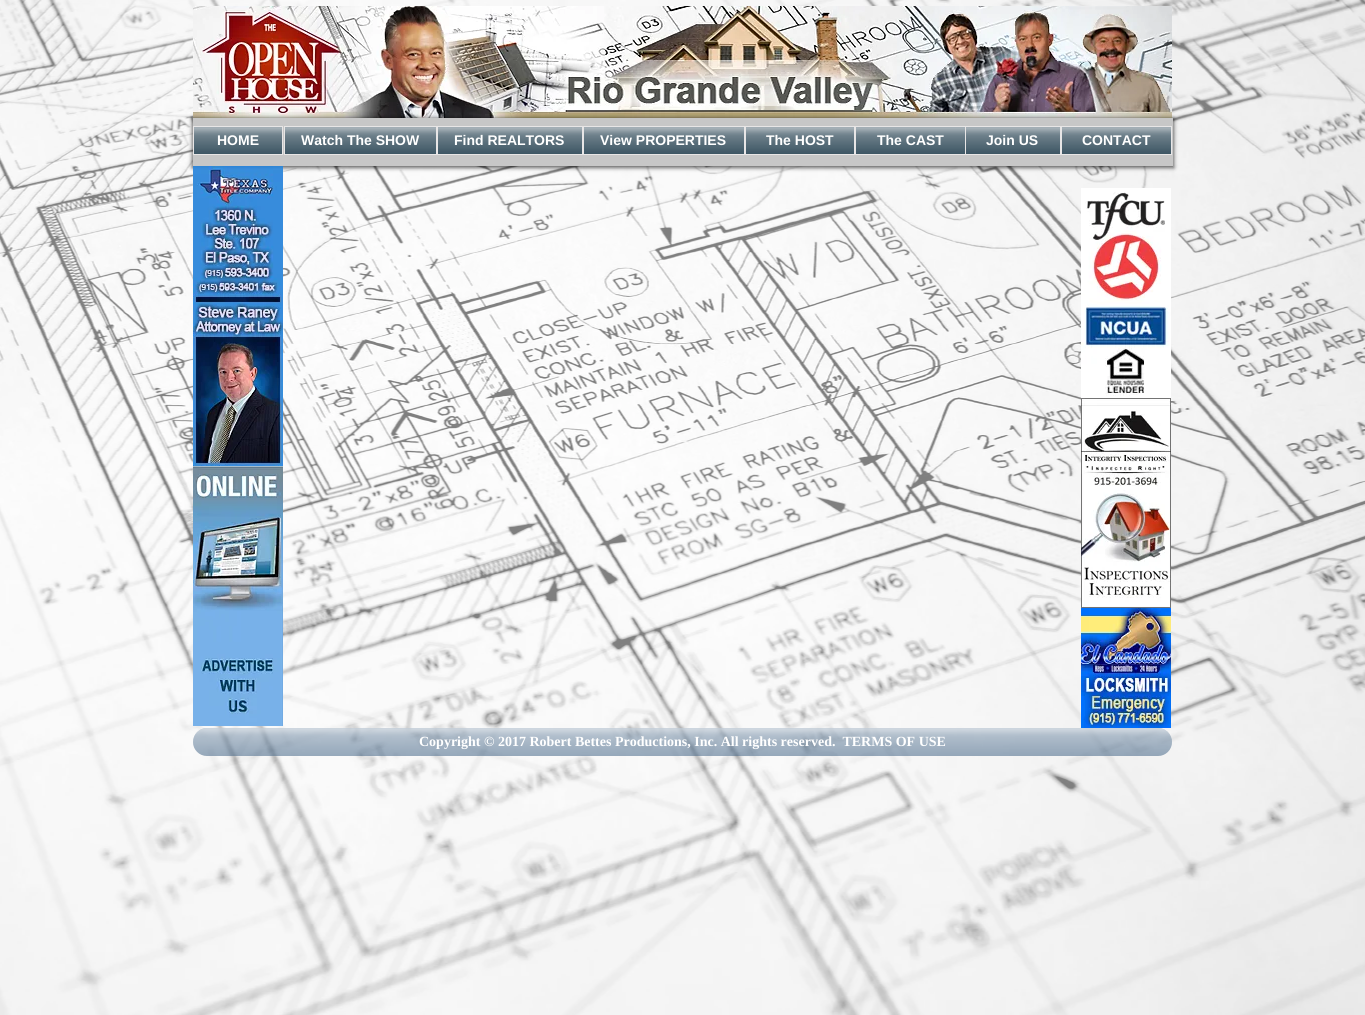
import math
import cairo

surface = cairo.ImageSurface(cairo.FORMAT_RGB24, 1365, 1015)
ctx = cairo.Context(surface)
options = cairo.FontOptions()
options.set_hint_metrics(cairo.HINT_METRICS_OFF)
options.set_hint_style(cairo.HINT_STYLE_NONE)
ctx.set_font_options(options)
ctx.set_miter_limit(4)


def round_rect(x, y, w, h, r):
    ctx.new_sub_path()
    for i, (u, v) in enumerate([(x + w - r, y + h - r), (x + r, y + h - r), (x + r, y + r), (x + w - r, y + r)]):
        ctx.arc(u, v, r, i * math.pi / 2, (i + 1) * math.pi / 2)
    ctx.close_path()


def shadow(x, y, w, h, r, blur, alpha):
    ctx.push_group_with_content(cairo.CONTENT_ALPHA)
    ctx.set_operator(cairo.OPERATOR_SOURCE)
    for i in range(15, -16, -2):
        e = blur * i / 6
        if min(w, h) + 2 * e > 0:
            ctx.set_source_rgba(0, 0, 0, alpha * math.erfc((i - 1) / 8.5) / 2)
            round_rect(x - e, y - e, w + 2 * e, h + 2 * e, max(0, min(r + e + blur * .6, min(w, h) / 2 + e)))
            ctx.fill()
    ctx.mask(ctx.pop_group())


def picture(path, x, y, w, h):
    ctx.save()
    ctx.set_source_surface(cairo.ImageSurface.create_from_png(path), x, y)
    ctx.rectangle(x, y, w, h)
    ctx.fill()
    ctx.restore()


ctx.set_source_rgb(1, 1, 1)
ctx.paint()
picture("img1.png", 0, 0, 1365, 1015)
picture("img2.png", 193, 6, 979, 112)
ctx.set_source_rgb(0, 0, 0)
shadow(192, 118, 982, 50, 0, 2, 0.6)
ctx.set_source_rgb(0.78, 0.78, 0.78)
ctx.rectangle(193, 118, 980, 48)
ctx.fill()
ctx.set_source_rgb(0.129, 0.239, 0.302)
ctx.rectangle(194, 127, 88, 27)
ctx.fill()
picture("img3.png", 194, 127, 88, 27)
ctx.rectangle(193.5, 126.5, 89, 28)
ctx.set_source_rgb(0.91, 0.902, 0.902)
ctx.set_line_width(1)
ctx.stroke()
ctx.select_font_face("Liberation Sans", cairo.FONT_SLANT_NORMAL, cairo.FONT_WEIGHT_BOLD)
ctx.set_font_size(14)
ctx.set_source_rgb(1, 1, 1)
ctx.move_to(217, 145)
ctx.show_text("HOME")
ctx.set_source_rgb(0.129, 0.239, 0.302)
ctx.rectangle(285, 127, 151, 27)
ctx.fill()
picture("img4.png", 285, 127, 151, 27)
ctx.rectangle(284.5, 126.5, 152, 28)
ctx.set_source_rgb(0.91, 0.902, 0.902)
ctx.stroke()
ctx.set_source_rgb(1, 1, 1)
ctx.move_to(301, 145)
ctx.show_text("Watch The SHOW")
ctx.set_source_rgb(0.129, 0.239, 0.302)
ctx.rectangle(438, 127, 144, 27)
ctx.fill()
picture("img5.png", 438, 127, 144, 27)
ctx.rectangle(437.5, 126.5, 145, 28)
ctx.set_source_rgb(0.91, 0.902, 0.902)
ctx.stroke()
ctx.set_source_rgb(1, 1, 1)
ctx.move_to(454, 145)
ctx.show_text("Find REALTORS")
ctx.set_source_rgb(0.129, 0.239, 0.302)
ctx.rectangle(584, 127, 160, 27)
ctx.fill()
picture("img6.png", 584, 127, 160, 27)
ctx.rectangle(583.5, 126.5, 161, 28)
ctx.set_source_rgb(0.91, 0.902, 0.902)
ctx.stroke()
ctx.set_source_rgb(1, 1, 1)
ctx.move_to(600, 145)
ctx.show_text("View PROPERTIES")
ctx.set_source_rgb(0.129, 0.239, 0.302)
ctx.rectangle(746, 127, 108, 27)
ctx.fill()
picture("img7.png", 746, 127, 108, 27)
ctx.rectangle(745.5, 126.5, 109, 28)
ctx.set_source_rgb(0.91, 0.902, 0.902)
ctx.stroke()
ctx.set_source_rgb(1, 1, 1)
ctx.move_to(766, 145)
ctx.show_text("The HOST")
ctx.set_source_rgb(0.129, 0.239, 0.302)
ctx.rectangle(856, 127, 109, 27)
ctx.fill()
picture("img8.png", 856, 127, 109, 27)
ctx.rectangle(855.5, 126.5, 110, 28)
ctx.set_source_rgb(0.91, 0.902, 0.902)
ctx.stroke()
ctx.set_source_rgb(1, 1, 1)
ctx.move_to(877, 145)
ctx.show_text("The CAST")
ctx.set_source_rgb(0.129, 0.239, 0.302)
ctx.rectangle(966, 127, 94, 27)
ctx.fill()
picture("img9.png", 966, 127, 94, 27)
ctx.rectangle(965.5, 126.5, 95, 28)
ctx.set_source_rgb(0.91, 0.902, 0.902)
ctx.stroke()
ctx.set_source_rgb(1, 1, 1)
ctx.move_to(986, 145)
ctx.show_text("Join US")
ctx.set_source_rgb(0.129, 0.239, 0.302)
ctx.rectangle(1062, 127, 109, 27)
ctx.fill()
picture("img8.png", 1062, 127, 109, 27)
ctx.rectangle(1061.5, 126.5, 110, 28)
ctx.set_source_rgb(0.91, 0.902, 0.902)
ctx.stroke()
ctx.set_source_rgb(1, 1, 1)
ctx.move_to(1082, 145)
ctx.show_text("CONTACT")
picture("img10.png", 193, 166, 90, 300)
picture("img11.png", 1081, 188, 90, 210)
picture("img12.png", 193, 466, 90, 260)
picture("img13.png", 1081, 398, 90, 210)
picture("img14.png", 1081, 608, 90, 120)
ctx.set_source_rgba(0, 0.18, 0.365, 0.46)
round_rect(193, 728, 979, 28, 14)
ctx.fill()
picture("img15.png", 193, 728, 979, 28)
ctx.select_font_face("Liberation Serif", cairo.FONT_SLANT_NORMAL, cairo.FONT_WEIGHT_BOLD)
ctx.set_source_rgb(1, 1, 1)
ctx.move_to(419, 746)
ctx.show_text("Copyright © 2017 Robert Bettes Productions, Inc. All rights reserved.  TERMS OF USE")
surface.write_to_png("page.png")
